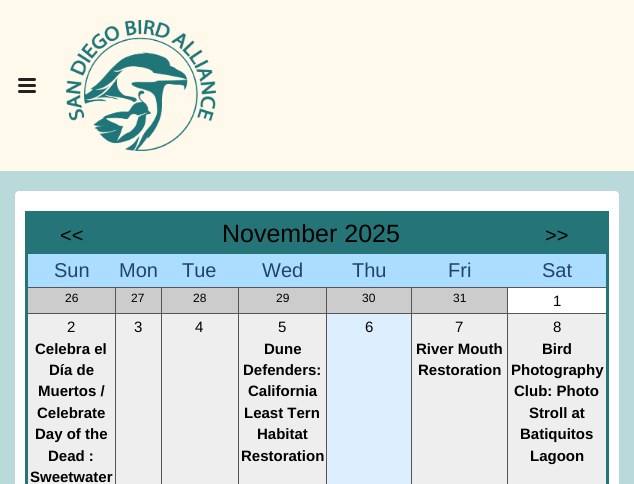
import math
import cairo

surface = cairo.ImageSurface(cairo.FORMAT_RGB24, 634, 484)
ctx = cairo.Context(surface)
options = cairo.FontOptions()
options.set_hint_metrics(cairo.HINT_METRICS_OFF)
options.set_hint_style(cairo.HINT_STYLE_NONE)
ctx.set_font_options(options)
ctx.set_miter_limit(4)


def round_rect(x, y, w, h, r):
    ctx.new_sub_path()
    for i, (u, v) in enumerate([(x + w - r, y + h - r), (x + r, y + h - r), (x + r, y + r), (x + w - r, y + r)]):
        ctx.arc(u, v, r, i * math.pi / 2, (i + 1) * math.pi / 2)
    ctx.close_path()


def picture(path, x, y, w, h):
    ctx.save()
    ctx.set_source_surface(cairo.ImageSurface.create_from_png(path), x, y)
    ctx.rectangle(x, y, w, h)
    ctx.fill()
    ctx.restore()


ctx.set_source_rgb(0.729, 0.851, 0.859)
ctx.paint()
ctx.set_source_rgb(1, 0.976, 0.922)
ctx.rectangle(0, 0, 634, 171)
ctx.fill()
ctx.set_source_rgb(0.133, 0.133, 0.133)
round_rect(18, 78, 18, 3, 1.5)
ctx.fill()
round_rect(18, 84, 18, 3, 1.5)
ctx.fill()
round_rect(18, 90, 18, 3, 1.5)
ctx.fill()
picture("img1.png", 66, 20, 150, 131)
ctx.set_source_rgb(1, 1, 1)
round_rect(15, 191, 604, 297, 4)
ctx.fill()
ctx.set_source_rgb(0.145, 0.459, 0.471)
ctx.rectangle(25, 211, 584, 3)
ctx.fill()
ctx.set_source_rgb(0.333, 0.333, 0.333)
ctx.rectangle(507, 287, 101, 1)
ctx.fill()
ctx.rectangle(507, 313, 101, 1)
ctx.fill()
ctx.set_source_rgb(0.145, 0.459, 0.471)
ctx.rectangle(606, 211, 3, 273)
ctx.fill()
ctx.set_source_rgb(0.333, 0.333, 0.333)
ctx.rectangle(507, 313, 1, 171)
ctx.fill()
ctx.rectangle(411, 313, 97, 1)
ctx.fill()
ctx.rectangle(507, 287, 1, 27)
ctx.fill()
ctx.rectangle(411, 287, 97, 1)
ctx.fill()
ctx.rectangle(411, 313, 1, 171)
ctx.fill()
ctx.rectangle(326, 313, 86, 1)
ctx.fill()
ctx.rectangle(411, 287, 1, 27)
ctx.fill()
ctx.rectangle(326, 287, 86, 1)
ctx.fill()
ctx.rectangle(326, 313, 1, 171)
ctx.fill()
ctx.rectangle(238, 313, 89, 1)
ctx.fill()
ctx.rectangle(326, 287, 1, 27)
ctx.fill()
ctx.rectangle(238, 287, 89, 1)
ctx.fill()
ctx.rectangle(238, 313, 1, 171)
ctx.fill()
ctx.rectangle(161, 313, 78, 1)
ctx.fill()
ctx.rectangle(238, 287, 1, 27)
ctx.fill()
ctx.rectangle(161, 287, 78, 1)
ctx.fill()
ctx.rectangle(161, 313, 1, 171)
ctx.fill()
ctx.rectangle(115, 313, 47, 1)
ctx.fill()
ctx.rectangle(161, 287, 1, 27)
ctx.fill()
ctx.rectangle(115, 287, 47, 1)
ctx.fill()
ctx.rectangle(115, 313, 1, 171)
ctx.fill()
ctx.rectangle(26, 313, 90, 1)
ctx.fill()
ctx.rectangle(115, 287, 1, 27)
ctx.fill()
ctx.rectangle(26, 287, 90, 1)
ctx.fill()
ctx.set_source_rgb(0.145, 0.459, 0.471)
ctx.rectangle(25, 211, 3, 273)
ctx.fill()
ctx.rectangle(28, 214, 578, 40)
ctx.fill()
ctx.select_font_face("Liberation Sans")
ctx.set_font_size(20)
ctx.set_source_rgb(0, 0, 0)
ctx.move_to(60, 242)
ctx.show_text("<<")
ctx.set_font_size(25)
ctx.move_to(222, 242)
ctx.show_text("November 2025")
ctx.set_font_size(20)
ctx.move_to(545, 242)
ctx.show_text(">>")
ctx.set_source_rgb(0.667, 0.867, 1)
ctx.rectangle(28, 254, 578, 33)
ctx.fill()
ctx.set_source_rgb(0.133, 0.267, 0.4)
ctx.move_to(54, 277)
ctx.show_text("Sun")
ctx.move_to(119, 277)
ctx.show_text("Mon")
ctx.move_to(182, 277)
ctx.show_text("Tue")
ctx.move_to(262, 277)
ctx.show_text("Wed")
ctx.move_to(352, 277)
ctx.show_text("Thu")
ctx.move_to(448, 277)
ctx.show_text("Fri")
ctx.move_to(542, 277)
ctx.show_text("Sat")
ctx.set_source_rgb(0.8, 0.8, 0.8)
ctx.rectangle(28, 288, 87, 25)
ctx.fill()
ctx.set_font_size(12)
ctx.set_source_rgb(0, 0, 0)
ctx.move_to(65, 302)
ctx.show_text("26")
ctx.set_source_rgb(0.8, 0.8, 0.8)
ctx.rectangle(116, 288, 45, 25)
ctx.fill()
ctx.set_source_rgb(0, 0, 0)
ctx.move_to(131, 302)
ctx.show_text("27")
ctx.set_source_rgb(0.8, 0.8, 0.8)
ctx.rectangle(162, 288, 76, 25)
ctx.fill()
ctx.set_source_rgb(0, 0, 0)
ctx.move_to(193, 302)
ctx.show_text("28")
ctx.set_source_rgb(0.8, 0.8, 0.8)
ctx.rectangle(239, 288, 87, 25)
ctx.fill()
ctx.set_source_rgb(0, 0, 0)
ctx.move_to(276, 302)
ctx.show_text("29")
ctx.set_source_rgb(0.8, 0.8, 0.8)
ctx.rectangle(327, 288, 84, 25)
ctx.fill()
ctx.set_source_rgb(0, 0, 0)
ctx.move_to(362, 302)
ctx.show_text("30")
ctx.set_source_rgb(0.8, 0.8, 0.8)
ctx.rectangle(412, 288, 95, 25)
ctx.fill()
ctx.set_source_rgb(0, 0, 0)
ctx.move_to(453, 302)
ctx.show_text("31")
ctx.set_font_size(15)
ctx.move_to(553, 306)
ctx.show_text("1")
ctx.set_source_rgb(0.933, 0.933, 0.933)
ctx.rectangle(28, 314, 87, 170)
ctx.fill()
ctx.set_source_rgb(0, 0, 0)
ctx.move_to(67, 332)
ctx.show_text("2")
ctx.select_font_face("Liberation Sans", cairo.FONT_SLANT_NORMAL, cairo.FONT_WEIGHT_BOLD)
ctx.move_to(35, 354)
ctx.show_text("Celebra el")
ctx.move_to(49, 375)
ctx.show_text("Día de")
ctx.move_to(38, 396)
ctx.show_text("Muertos /")
ctx.move_to(37, 418)
ctx.show_text("Celebrate")
ctx.move_to(35, 439)
ctx.show_text("Day of the")
ctx.move_to(48, 461)
ctx.show_text("Dead :")
ctx.move_to(30, 482)
ctx.show_text("Sweetwater")
ctx.set_source_rgb(0.933, 0.933, 0.933)
ctx.rectangle(116, 314, 45, 170)
ctx.fill()
ctx.select_font_face("Liberation Sans")
ctx.set_source_rgb(0, 0, 0)
ctx.move_to(134, 332)
ctx.show_text("3")
ctx.set_source_rgb(0.933, 0.933, 0.933)
ctx.rectangle(162, 314, 76, 170)
ctx.fill()
ctx.set_source_rgb(0, 0, 0)
ctx.move_to(195, 332)
ctx.show_text("4")
ctx.set_source_rgb(0.933, 0.933, 0.933)
ctx.rectangle(239, 314, 87, 170)
ctx.fill()
ctx.set_source_rgb(0, 0, 0)
ctx.move_to(278, 332)
ctx.show_text("5")
ctx.select_font_face("Liberation Sans", cairo.FONT_SLANT_NORMAL, cairo.FONT_WEIGHT_BOLD)
ctx.move_to(264, 354)
ctx.show_text("Dune")
ctx.move_to(243, 375)
ctx.show_text("Defenders:")
ctx.move_to(248, 396)
ctx.show_text("California")
ctx.move_to(244, 418)
ctx.show_text("Least Tern")
ctx.move_to(257, 439)
ctx.show_text("Habitat")
ctx.move_to(241, 461)
ctx.show_text("Restoration")
ctx.set_source_rgb(0.867, 0.933, 1)
ctx.rectangle(327, 314, 84, 170)
ctx.fill()
ctx.select_font_face("Liberation Sans")
ctx.set_source_rgb(0, 0, 0)
ctx.move_to(365, 332)
ctx.show_text("6")
ctx.set_source_rgb(0.933, 0.933, 0.933)
ctx.rectangle(412, 314, 95, 170)
ctx.fill()
ctx.set_source_rgb(0, 0, 0)
ctx.move_to(455, 332)
ctx.show_text("7")
ctx.select_font_face("Liberation Sans", cairo.FONT_SLANT_NORMAL, cairo.FONT_WEIGHT_BOLD)
ctx.move_to(416, 354)
ctx.show_text("River Mouth")
ctx.move_to(418, 375)
ctx.show_text("Restoration")
ctx.set_source_rgb(0.933, 0.933, 0.933)
ctx.rectangle(508, 314, 98, 170)
ctx.fill()
ctx.select_font_face("Liberation Sans")
ctx.set_source_rgb(0, 0, 0)
ctx.move_to(553, 332)
ctx.show_text("8")
ctx.select_font_face("Liberation Sans", cairo.FONT_SLANT_NORMAL, cairo.FONT_WEIGHT_BOLD)
ctx.move_to(542, 354)
ctx.show_text("Bird")
ctx.move_to(511, 375)
ctx.show_text("Photography")
ctx.move_to(514, 396)
ctx.show_text("Club: Photo")
ctx.move_to(529, 418)
ctx.show_text("Stroll at")
ctx.move_to(520, 439)
ctx.show_text("Batiquitos")
ctx.move_to(530, 461)
ctx.show_text("Lagoon")
surface.write_to_png("page.png")
